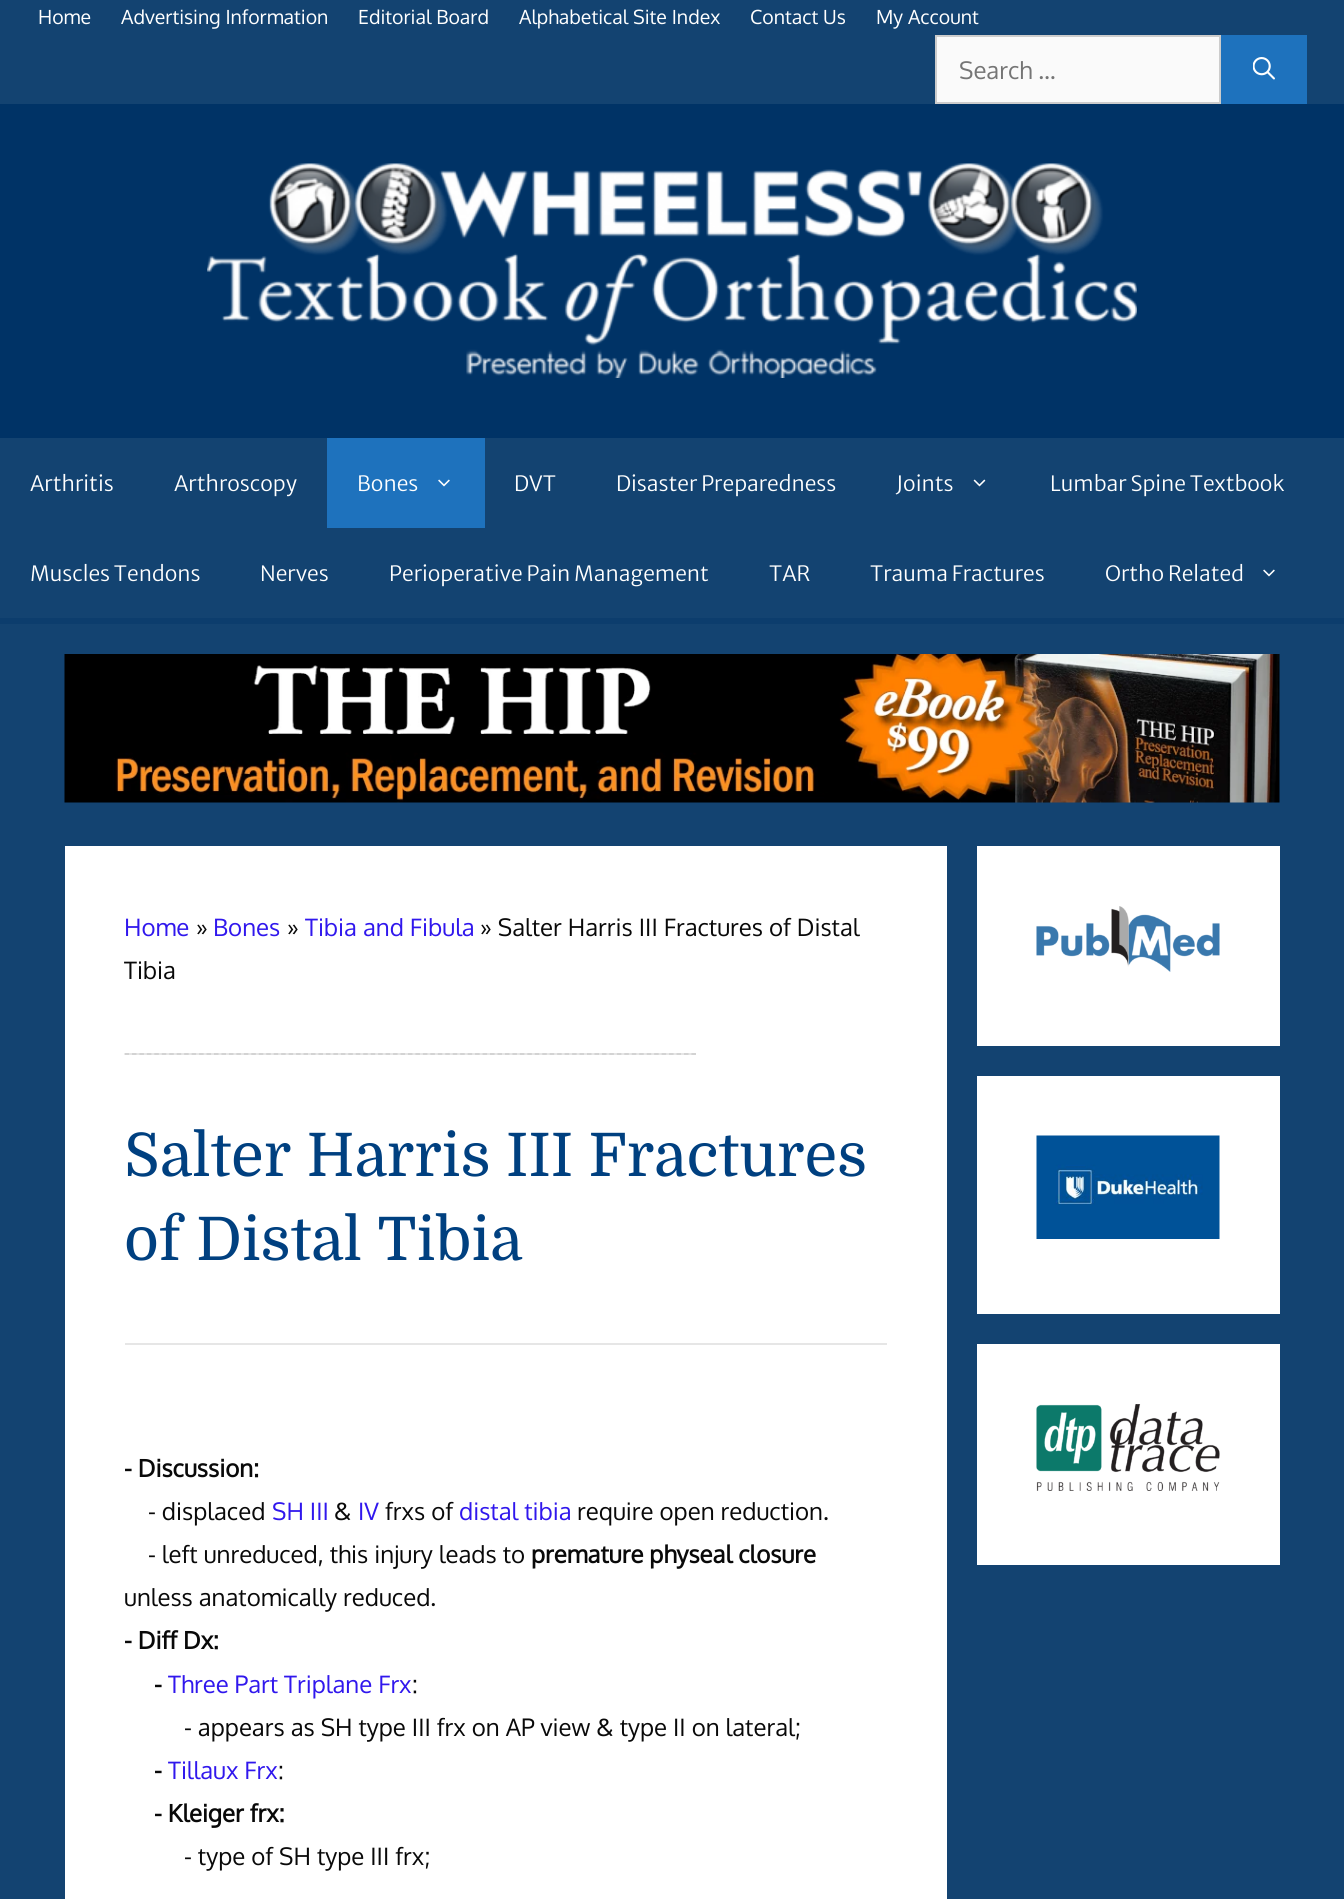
import math
import cairo

surface = cairo.ImageSurface(cairo.FORMAT_RGB24, 1344, 1899)
ctx = cairo.Context(surface)
options = cairo.FontOptions()
options.set_hint_metrics(cairo.HINT_METRICS_OFF)
options.set_hint_style(cairo.HINT_STYLE_NONE)
ctx.set_font_options(options)
ctx.set_miter_limit(4)


def picture(path, x, y, w, h):
    ctx.save()
    ctx.set_source_surface(cairo.ImageSurface.create_from_png(path), x, y)
    ctx.rectangle(x, y, w, h)
    ctx.fill()
    ctx.restore()


ctx.set_source_rgb(0.078, 0.263, 0.443)
ctx.paint()
ctx.select_font_face("Oxygen")
ctx.set_font_size(19.5)
ctx.set_source_rgb(1, 1, 1)
ctx.move_to(38, 24)
ctx.show_text("Home")
ctx.move_to(121, 24)
ctx.show_text("Advertising Information")
ctx.move_to(358, 24)
ctx.show_text("Editorial Board")
ctx.move_to(519, 24)
ctx.show_text("Alphabetical Site Index")
ctx.move_to(750, 24)
ctx.show_text("Contact Us")
ctx.move_to(876, 24)
ctx.show_text("My Account")
ctx.set_source_rgb(0.98, 0.98, 0.98)
ctx.rectangle(936, 36, 284, 67)
ctx.fill_preserve()
ctx.set_source_rgb(0.8, 0.8, 0.8)
ctx.stroke()
ctx.set_font_size(24)
ctx.set_source_rgb(0.459, 0.459, 0.459)
ctx.move_to(959, 79)
ctx.show_text("Search …")
ctx.set_source_rgb(0.118, 0.447, 0.741)
ctx.rectangle(1221, 35, 86, 69)
ctx.fill()
picture("img1.png", 1253, 57, 22, 23)
ctx.set_source_rgb(0, 0.2, 0.4)
ctx.rectangle(0, 104, 1344, 334)
ctx.fill()
picture("img2.png", 207, 163, 930, 215)
ctx.set_source_rgb(0.047, 0.239, 0.427)
ctx.rectangle(0, 618, 1344, 6)
ctx.fill()
ctx.select_font_face("Merriweather Sans Light")
ctx.set_font_size(21)
ctx.set_source_rgb(1, 1, 1)
ctx.move_to(30, 491)
ctx.show_text("Arthritis")
ctx.move_to(174, 491)
ctx.show_text("Arthroscopy")
ctx.set_source_rgb(0.118, 0.447, 0.741)
ctx.rectangle(327, 438, 158, 90)
ctx.fill()
ctx.set_source_rgb(1, 1, 1)
ctx.move_to(357, 491)
ctx.show_text("Bones")
picture("img3.png", 438, 479, 12, 8)
ctx.move_to(514, 491)
ctx.show_text("DVT")
ctx.move_to(616, 491)
ctx.show_text("Disaster Preparedness")
ctx.move_to(896, 491)
ctx.show_text("Joints")
picture("img4.png", 973, 479, 13, 8)
ctx.move_to(1050, 491)
ctx.show_text("Lumbar Spine Textbook")
ctx.move_to(30, 581)
ctx.show_text("Muscles Tendons")
ctx.move_to(260, 581)
ctx.show_text("Nerves")
ctx.move_to(389, 581)
ctx.show_text("Perioperative Pain Management")
ctx.move_to(769, 581)
ctx.show_text("TAR")
ctx.move_to(870, 581)
ctx.show_text("Trauma Fractures")
ctx.move_to(1105, 581)
ctx.show_text("Ortho Related")
picture("img5.png", 1263, 569, 12, 8)
picture("img6.png", 64, 654, 1216, 149)
ctx.rectangle(65, 846, 882, 1053)
ctx.fill()
ctx.select_font_face("Oxygen")
ctx.set_font_size(24)
ctx.set_source_rgb(0.188, 0.09, 0.929)
ctx.move_to(124, 936)
ctx.show_text("Home")
ctx.set_source_rgb(0.039, 0.039, 0.039)
ctx.move_to(196, 936)
ctx.show_text("»")
ctx.set_source_rgb(0.188, 0.09, 0.929)
ctx.move_to(213, 936)
ctx.show_text("Bones")
ctx.set_source_rgb(0.039, 0.039, 0.039)
ctx.move_to(287, 936)
ctx.show_text("»")
ctx.set_source_rgb(0.188, 0.09, 0.929)
ctx.move_to(305, 936)
ctx.show_text("Tibia and Fibula")
ctx.set_source_rgb(0.039, 0.039, 0.039)
ctx.move_to(480, 936)
ctx.show_text("» Salter Harris III Fractures of Distal")
ctx.move_to(124, 979)
ctx.show_text("Tibia")
ctx.set_source_rgb(0.902, 0.902, 0.902)
ctx.rectangle(125, 1053, 571, 2)
ctx.fill()
ctx.new_path()
ctx.move_to(124.5, 1054)
ctx.line_to(696, 1054)
ctx.set_source_rgb(0.8, 0.8, 0.8)
ctx.set_line_width(1.5)
ctx.set_dash([4.5, 2.96])
ctx.stroke()
ctx.select_font_face("Domine")
ctx.set_font_size(60)
ctx.set_source_rgb(0, 0.251, 0.502)
ctx.move_to(124, 1176)
ctx.show_text("Salter Harris III Fractures")
ctx.move_to(124, 1260)
ctx.show_text("of Distal Tibia")
ctx.set_source_rgb(0.902, 0.902, 0.902)
ctx.rectangle(125, 1343, 762, 2)
ctx.fill()
ctx.select_font_face("Oxygen", cairo.FONT_SLANT_NORMAL, cairo.FONT_WEIGHT_BOLD)
ctx.set_font_size(24)
ctx.set_source_rgb(0.039, 0.039, 0.039)
ctx.move_to(124, 1477)
ctx.show_text("- Discussion:")
ctx.select_font_face("Oxygen")
ctx.move_to(148, 1520)
ctx.show_text("- displaced")
ctx.set_source_rgb(0.188, 0.09, 0.929)
ctx.move_to(272, 1520)
ctx.show_text("SH III")
ctx.set_source_rgb(0.039, 0.039, 0.039)
ctx.move_to(334, 1520)
ctx.show_text("&")
ctx.set_source_rgb(0.188, 0.09, 0.929)
ctx.move_to(358, 1520)
ctx.show_text("IV")
ctx.set_source_rgb(0.039, 0.039, 0.039)
ctx.move_to(385, 1520)
ctx.show_text("frxs of")
ctx.set_source_rgb(0.188, 0.09, 0.929)
ctx.move_to(459, 1520)
ctx.show_text("distal tibia")
ctx.set_source_rgb(0.039, 0.039, 0.039)
ctx.move_to(577, 1520)
ctx.show_text("require open reduction.")
ctx.move_to(148, 1563)
ctx.show_text("- left unreduced, this injury leads to")
ctx.select_font_face("Oxygen", cairo.FONT_SLANT_NORMAL, cairo.FONT_WEIGHT_BOLD)
ctx.move_to(531, 1563)
ctx.show_text("premature physeal closure")
ctx.select_font_face("Oxygen")
ctx.move_to(124, 1606)
ctx.show_text("unless anatomically reduced.")
ctx.select_font_face("Oxygen", cairo.FONT_SLANT_NORMAL, cairo.FONT_WEIGHT_BOLD)
ctx.move_to(124, 1649)
ctx.show_text("- Diff Dx:")
ctx.move_to(154, 1693)
ctx.show_text("-")
ctx.select_font_face("Oxygen")
ctx.set_source_rgb(0.188, 0.09, 0.929)
ctx.move_to(168, 1693)
ctx.show_text("Three Part Triplane Frx")
ctx.set_source_rgb(0.039, 0.039, 0.039)
ctx.move_to(412, 1693)
ctx.show_text(":")
ctx.move_to(184, 1736)
ctx.show_text("- appears as SH type III frx on AP view & type II on lateral;")
ctx.select_font_face("Oxygen", cairo.FONT_SLANT_NORMAL, cairo.FONT_WEIGHT_BOLD)
ctx.move_to(154, 1779)
ctx.show_text("-")
ctx.select_font_face("Oxygen")
ctx.set_source_rgb(0.188, 0.09, 0.929)
ctx.move_to(168, 1779)
ctx.show_text("Tillaux Frx")
ctx.set_source_rgb(0.039, 0.039, 0.039)
ctx.move_to(278, 1779)
ctx.show_text(":")
ctx.select_font_face("Oxygen", cairo.FONT_SLANT_NORMAL, cairo.FONT_WEIGHT_BOLD)
ctx.move_to(154, 1822)
ctx.show_text("- Kleiger frx:")
ctx.select_font_face("Oxygen")
ctx.move_to(184, 1865)
ctx.show_text("- type of SH type III frx;")
ctx.set_source_rgb(1, 1, 1)
ctx.rectangle(977, 846, 303, 200)
ctx.fill()
picture("img7.png", 1036, 906, 184, 66)
ctx.rectangle(977, 1076, 303, 238)
ctx.fill()
picture("img8.png", 1036, 1135, 184, 104)
ctx.rectangle(977, 1344, 303, 221)
ctx.fill()
picture("img9.png", 1036, 1404, 184, 87)
surface.write_to_png("page.png")
